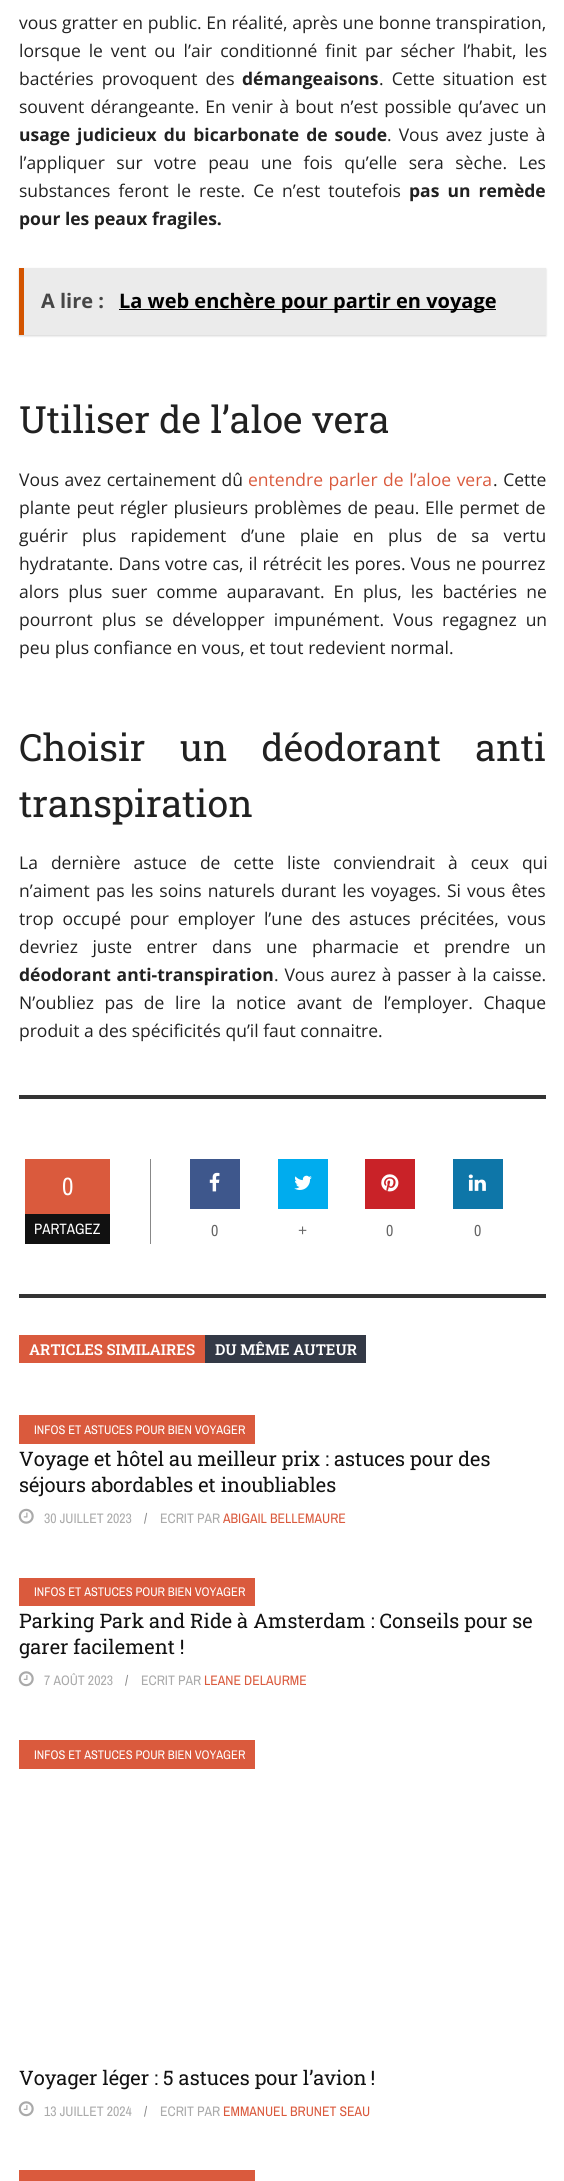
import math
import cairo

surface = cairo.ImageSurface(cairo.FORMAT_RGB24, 564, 2181)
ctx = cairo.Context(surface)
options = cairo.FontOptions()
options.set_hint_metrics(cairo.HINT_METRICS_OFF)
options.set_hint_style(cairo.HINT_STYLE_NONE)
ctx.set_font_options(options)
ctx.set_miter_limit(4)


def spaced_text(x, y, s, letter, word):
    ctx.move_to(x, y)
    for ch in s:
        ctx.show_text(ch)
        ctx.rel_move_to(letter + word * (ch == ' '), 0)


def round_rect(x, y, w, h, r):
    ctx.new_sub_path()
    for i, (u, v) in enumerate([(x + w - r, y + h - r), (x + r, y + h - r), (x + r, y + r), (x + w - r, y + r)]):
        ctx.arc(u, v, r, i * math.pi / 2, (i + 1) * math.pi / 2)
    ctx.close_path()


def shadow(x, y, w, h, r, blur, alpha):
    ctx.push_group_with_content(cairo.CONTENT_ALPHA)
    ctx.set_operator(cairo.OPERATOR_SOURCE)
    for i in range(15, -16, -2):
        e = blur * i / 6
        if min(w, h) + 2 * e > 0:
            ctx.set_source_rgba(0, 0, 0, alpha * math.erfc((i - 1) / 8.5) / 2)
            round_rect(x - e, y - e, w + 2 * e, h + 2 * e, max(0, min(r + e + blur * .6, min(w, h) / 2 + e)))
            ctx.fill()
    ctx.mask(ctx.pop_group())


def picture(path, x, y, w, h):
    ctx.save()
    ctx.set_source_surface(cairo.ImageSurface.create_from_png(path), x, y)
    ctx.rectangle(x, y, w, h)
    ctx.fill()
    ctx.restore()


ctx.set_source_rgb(1, 1, 1)
ctx.paint()
ctx.select_font_face("Open Sans")
ctx.set_font_size(17.5)
ctx.set_source_rgb(0.129, 0.129, 0.129)
spaced_text(19, 29, "vous gratter en public. En réalité, après une bonne transpiration,", 0, 0.1)
spaced_text(19, 57, "lorsque le vent ou l’air conditionné finit par sécher l’habit, les", 0, 3.4)
spaced_text(19, 85, "bactéries provoquent des", 0, 3.5)
ctx.select_font_face("Open Sans", cairo.FONT_SLANT_NORMAL, cairo.FONT_WEIGHT_BOLD)
ctx.move_to(242, 85)
ctx.show_text("démangeaisons")
ctx.select_font_face("Open Sans")
spaced_text(379, 85, ". Cette situation est", 0, 3.5)
spaced_text(19, 113, "souvent dérangeante. En venir à bout n’est possible qu’avec un", 0, 1.75)
ctx.select_font_face("Open Sans", cairo.FONT_SLANT_NORMAL, cairo.FONT_WEIGHT_BOLD)
spaced_text(19, 141, "usage judicieux du bicarbonate de soude", 0, 2.5)
ctx.select_font_face("Open Sans")
spaced_text(387, 141, ". Vous avez juste à", 0, 2.5)
spaced_text(19, 169, "l’appliquer sur votre peau une fois qu’elle sera sèche. Les", 0, 7)
spaced_text(19, 197, "substances feront le reste. Ce n’est toutefois", 0, 3.5)
ctx.select_font_face("Open Sans", cairo.FONT_SLANT_NORMAL, cairo.FONT_WEIGHT_BOLD)
spaced_text(409, 197, "pas un remède", 0, 3.5)
ctx.move_to(19, 225)
ctx.show_text("pour les peaux fragiles.")
ctx.set_source_rgb(0, 0, 0)
shadow(19, 269, 527, 67, 0, 1, 0.17)
ctx.set_source_rgb(0.918, 0.918, 0.918)
ctx.rectangle(24, 268, 522, 67)
ctx.fill()
ctx.set_source_rgb(0.827, 0.329, 0)
ctx.rectangle(19, 268, 5, 67)
ctx.fill()
ctx.set_font_size(20)
ctx.set_source_rgb(0.275, 0.275, 0.275)
ctx.move_to(41, 308)
ctx.show_text("A lire :")
ctx.set_source_rgb(0, 0, 0)
ctx.rectangle(119, 309, 377, 1)
ctx.fill()
ctx.move_to(119, 308)
ctx.show_text("La web enchère pour partir en voyage")
ctx.select_font_face("Roboto Slab")
ctx.set_font_size(37.5)
ctx.set_source_rgb(0.129, 0.129, 0.129)
ctx.move_to(19, 433)
ctx.show_text("Utiliser de l’aloe vera")
ctx.select_font_face("Open Sans")
ctx.set_font_size(17.5)
spaced_text(19, 486, "Vous avez certainement dû", 0, 1)
ctx.set_source_rgb(0.855, 0.353, 0.239)
spaced_text(248, 486, "entendre parler de l’aloe vera", 0, 1)
ctx.set_source_rgb(0.129, 0.129, 0.129)
spaced_text(493, 486, ". Cette", 0, 1)
spaced_text(19, 514, "plante peut régler plusieurs problèmes de peau. Elle permet de", 0, 1.25)
spaced_text(19, 542, "guérir plus rapidement d’une plaie en plus de sa vertu", 0, 9.75)
spaced_text(19, 570, "hydratante. Dans votre cas, il rétrécit les pores. Vous ne pourrez", 0, 0.5)
spaced_text(19, 598, "alors plus suer comme auparavant. En plus, les bactéries ne", 0, 4.5)
spaced_text(19, 626, "pourront plus se développer impunément. Vous regagnez un", 0, 4.5)
ctx.move_to(19, 654)
ctx.show_text("peu plus confiance en vous, et tout redevient normal.")
ctx.select_font_face("Roboto Slab")
ctx.set_font_size(37.5)
spaced_text(19, 761, "Choisir un déodorant anti", 0, 25)
ctx.move_to(19, 817)
ctx.show_text("transpiration")
ctx.select_font_face("Open Sans")
ctx.set_font_size(17.5)
spaced_text(19, 869, "La dernière astuce de cette liste conviendrait à ceux qui", 0, 8.5)
spaced_text(19, 897, "n’aiment pas les soins naturels durant les voyages. Si vous êtes", 0, 1.5)
spaced_text(19, 925, "trop occupé pour employer l’une des astuces précitées, vous", 0, 4.25)
spaced_text(19, 953, "devriez juste entrer dans une pharmacie et prendre un", 0, 10)
ctx.select_font_face("Open Sans", cairo.FONT_SLANT_NORMAL, cairo.FONT_WEIGHT_BOLD)
spaced_text(19, 981, "déodorant anti-transpiration", 0, 1.25)
ctx.select_font_face("Open Sans")
spaced_text(274, 981, ". Vous aurez à passer à la caisse.", 0, 1.25)
spaced_text(19, 1009, "N’oubliez pas de lire la notice avant de l’employer. Chaque", 0, 6)
ctx.move_to(19, 1037)
ctx.show_text("produit a des spécificités qu’il faut connaitre.")
ctx.set_source_rgb(0.2, 0.2, 0.2)
ctx.rectangle(19, 1095, 527, 4)
ctx.fill()
ctx.set_source_rgb(0.533, 0.533, 0.533)
ctx.rectangle(150, 1159, 1, 85)
ctx.fill()
ctx.set_source_rgb(0.855, 0.353, 0.239)
ctx.rectangle(25, 1159, 85, 55)
ctx.fill()
ctx.select_font_face("Archivo Narrow")
ctx.set_font_size(25)
ctx.set_source_rgb(1, 1, 1)
ctx.move_to(62, 1195)
ctx.show_text("0")
ctx.set_source_rgb(0.067, 0.067, 0.067)
ctx.rectangle(25, 1214, 85, 30)
ctx.fill()
ctx.set_font_size(15)
ctx.set_source_rgb(1, 1, 1)
ctx.move_to(34, 1234)
ctx.show_text("PARTAGEZ")
ctx.set_source_rgb(0.243, 0.341, 0.549)
ctx.rectangle(190, 1159, 50, 50)
ctx.fill()
picture("img1.png", 209, 1172, 11, 20)
ctx.set_font_size(16)
ctx.set_source_rgb(0.4, 0.4, 0.4)
ctx.move_to(211, 1236)
ctx.show_text("0")
ctx.set_source_rgb(0, 0.675, 0.933)
ctx.rectangle(278, 1159, 50, 50)
ctx.fill()
picture("img2.png", 294, 1175, 18, 15)
ctx.select_font_face("Open Sans")
ctx.set_source_rgb(0.4, 0.4, 0.4)
ctx.move_to(298, 1236)
ctx.show_text("+")
ctx.set_source_rgb(0.788, 0.133, 0.157)
ctx.rectangle(365, 1159, 50, 50)
ctx.fill()
picture("img3.png", 381, 1174, 18, 18)
ctx.select_font_face("Archivo Narrow")
ctx.set_source_rgb(0.4, 0.4, 0.4)
ctx.move_to(386, 1236)
ctx.show_text("0")
ctx.set_source_rgb(0.055, 0.463, 0.659)
ctx.rectangle(453, 1159, 50, 50)
ctx.fill()
picture("img4.png", 468, 1174, 18, 17)
ctx.set_source_rgb(0.4, 0.4, 0.4)
ctx.move_to(474, 1236)
ctx.show_text("0")
ctx.set_source_rgb(0.2, 0.2, 0.2)
ctx.rectangle(19, 1294, 527, 4)
ctx.fill()
ctx.set_source_rgb(0.855, 0.353, 0.239)
ctx.rectangle(19, 1335, 186, 28)
ctx.fill()
ctx.select_font_face("Roboto Slab SemiBold")
ctx.set_font_size(15)
ctx.set_source_rgb(1, 1, 1)
ctx.move_to(29, 1355)
ctx.show_text("ARTICLES SIMILAIRES")
ctx.set_source_rgb(0.2, 0.224, 0.275)
ctx.rectangle(205, 1335, 161, 28)
ctx.fill()
ctx.set_source_rgb(1, 1, 1)
ctx.move_to(215, 1355)
ctx.show_text("DU MÊME AUTEUR")
ctx.set_source_rgb(0.855, 0.353, 0.239)
ctx.rectangle(19, 1415, 236, 29)
ctx.fill()
ctx.select_font_face("Archivo Narrow")
ctx.set_font_size(12.5)
ctx.set_source_rgb(1, 1, 1)
ctx.move_to(34, 1434)
ctx.show_text("INFOS ET ASTUCES POUR BIEN VOYAGER")
ctx.select_font_face("Roboto Slab")
ctx.set_font_size(20)
ctx.set_source_rgb(0.067, 0.067, 0.067)
ctx.move_to(19, 1466)
ctx.show_text("Voyage et hôtel au meilleur prix : astuces pour des")
ctx.move_to(19, 1492)
ctx.show_text("séjours abordables et inoubliables")
picture("img5.png", 18, 1508, 16, 16)
ctx.select_font_face("Archivo Narrow")
ctx.set_font_size(13.75)
ctx.set_source_rgb(0.667, 0.667, 0.667)
ctx.move_to(44, 1523)
ctx.show_text("30 JUILLET 2023")
ctx.set_source_rgb(0.533, 0.533, 0.533)
ctx.move_to(144, 1523)
ctx.show_text("/")
ctx.set_source_rgb(0.667, 0.667, 0.667)
ctx.move_to(160, 1523)
ctx.show_text("ECRIT PAR")
ctx.set_source_rgb(0.855, 0.353, 0.239)
ctx.move_to(223, 1523)
ctx.show_text("ABIGAIL BELLEMAURE")
ctx.rectangle(19, 1578, 236, 28)
ctx.fill()
ctx.set_font_size(12.5)
ctx.set_source_rgb(1, 1, 1)
ctx.move_to(34, 1596)
ctx.show_text("INFOS ET ASTUCES POUR BIEN VOYAGER")
ctx.select_font_face("Roboto Slab")
ctx.set_font_size(20)
ctx.set_source_rgb(0.067, 0.067, 0.067)
ctx.move_to(19, 1628)
ctx.show_text("Parking Park and Ride à Amsterdam : Conseils pour se")
ctx.move_to(19, 1654)
ctx.show_text("garer facilement !")
picture("img6.png", 18, 1671, 16, 16)
ctx.select_font_face("Archivo Narrow")
ctx.set_font_size(13.75)
ctx.set_source_rgb(0.667, 0.667, 0.667)
ctx.move_to(44, 1685)
ctx.show_text("7 AOÛT 2023")
ctx.set_source_rgb(0.533, 0.533, 0.533)
ctx.move_to(125, 1685)
ctx.show_text("/")
ctx.set_source_rgb(0.667, 0.667, 0.667)
ctx.move_to(141, 1685)
ctx.show_text("ECRIT PAR")
ctx.set_source_rgb(0.855, 0.353, 0.239)
ctx.move_to(204, 1685)
ctx.show_text("LEANE DELAURME")
ctx.rectangle(19, 1740, 236, 29)
ctx.fill()
ctx.set_font_size(12.5)
ctx.set_source_rgb(1, 1, 1)
ctx.move_to(34, 1759)
ctx.show_text("INFOS ET ASTUCES POUR BIEN VOYAGER")
ctx.select_font_face("Roboto Slab")
ctx.set_font_size(20)
ctx.set_source_rgb(0.067, 0.067, 0.067)
ctx.move_to(19, 2085)
ctx.show_text("Voyager léger : 5 astuces pour l’avion !")
picture("img6.png", 18, 2101, 16, 16)
ctx.select_font_face("Archivo Narrow")
ctx.set_font_size(13.75)
ctx.set_source_rgb(0.667, 0.667, 0.667)
ctx.move_to(44, 2116)
ctx.show_text("13 JUILLET 2024")
ctx.set_source_rgb(0.533, 0.533, 0.533)
ctx.move_to(144, 2116)
ctx.show_text("/")
ctx.set_source_rgb(0.667, 0.667, 0.667)
ctx.move_to(160, 2116)
ctx.show_text("ECRIT PAR")
ctx.set_source_rgb(0.855, 0.353, 0.239)
ctx.move_to(223, 2116)
ctx.show_text("EMMANUEL BRUNET SEAU")
ctx.rectangle(19, 2170, 236, 11)
ctx.fill()
surface.write_to_png("page.png")
